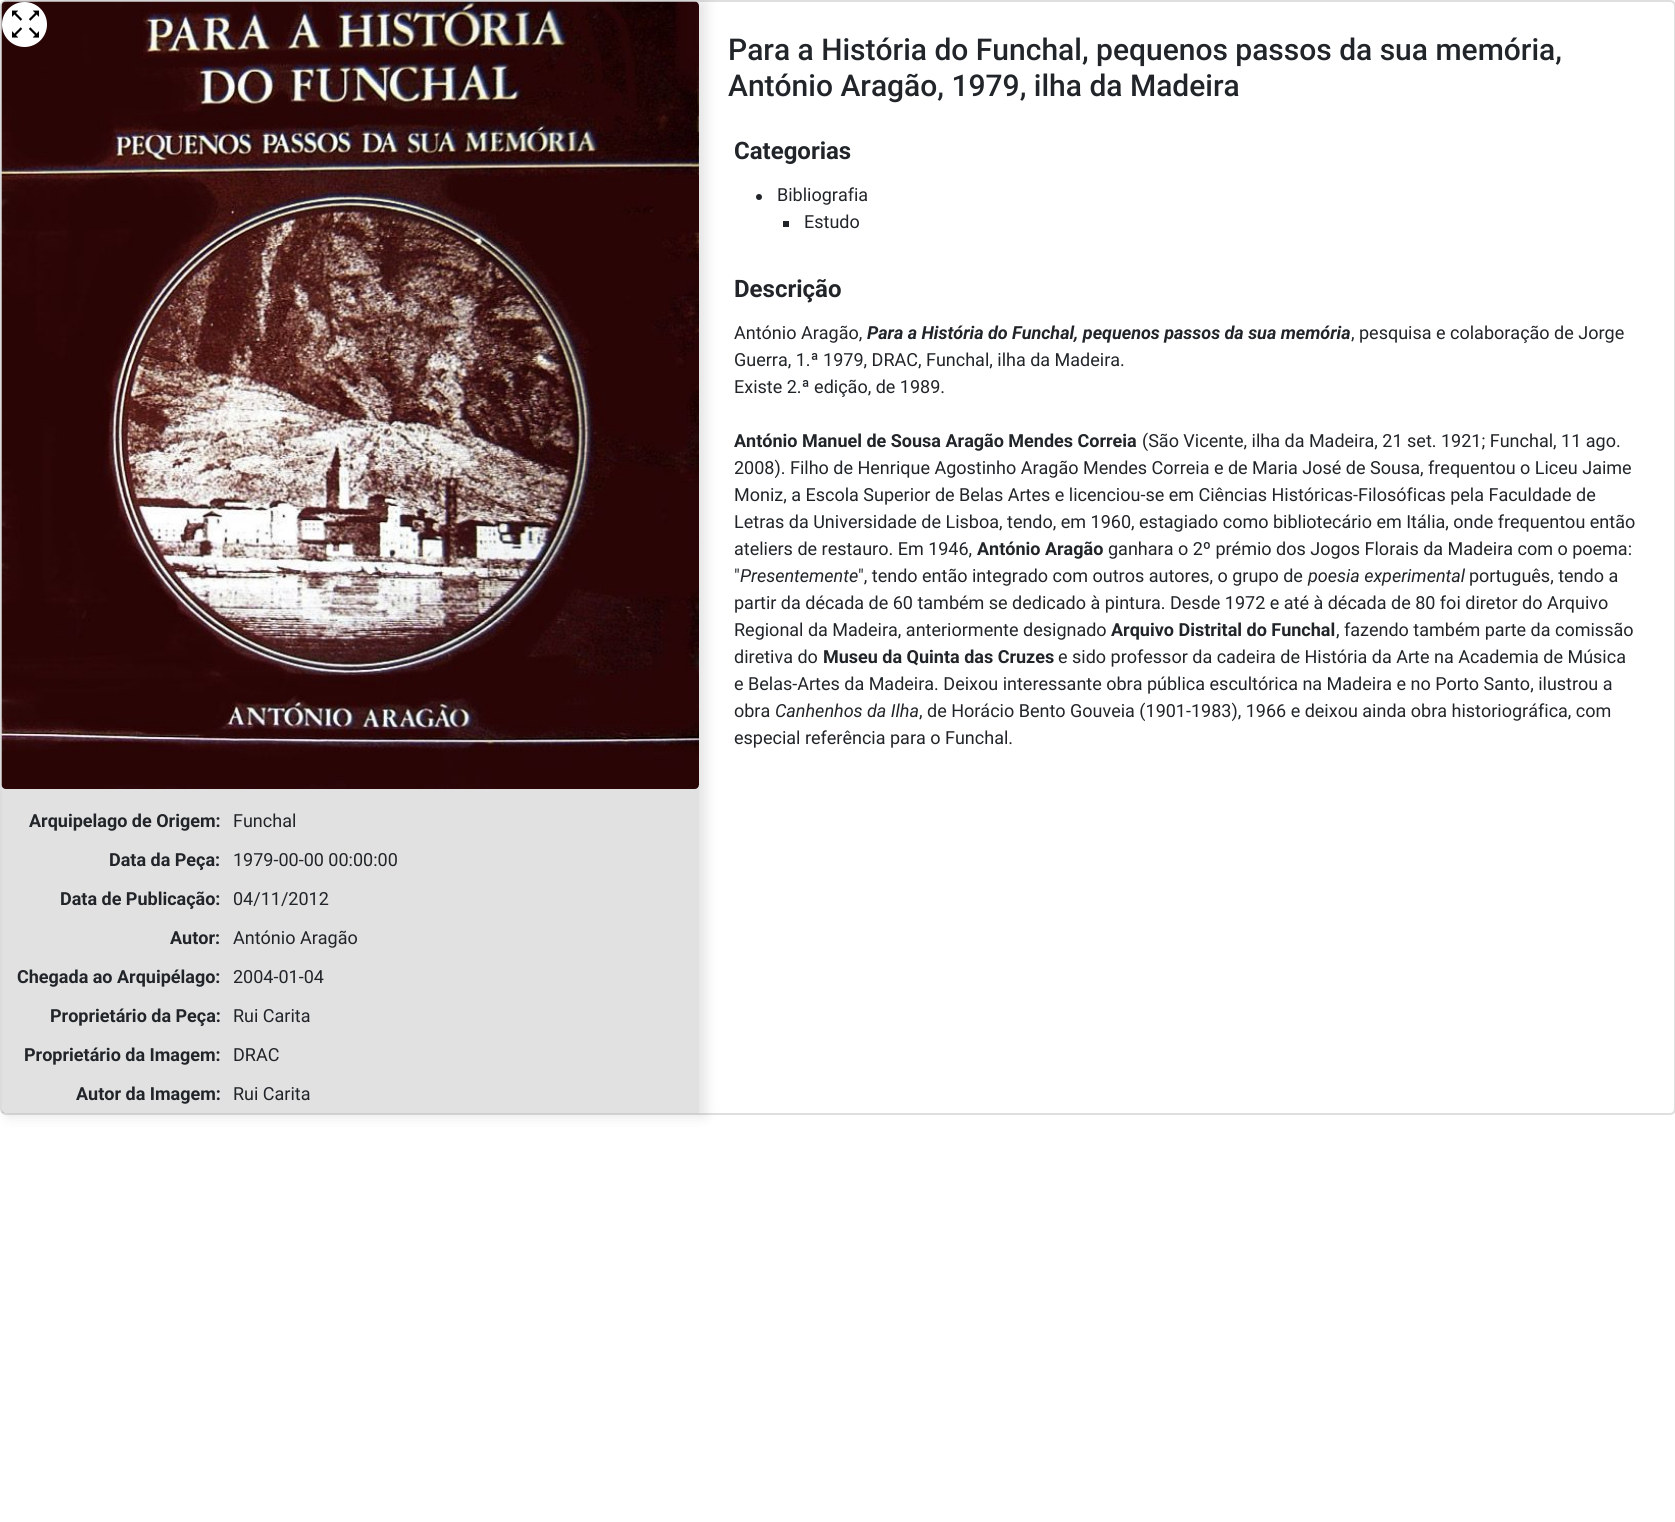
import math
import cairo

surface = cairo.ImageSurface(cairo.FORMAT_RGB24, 1675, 1522)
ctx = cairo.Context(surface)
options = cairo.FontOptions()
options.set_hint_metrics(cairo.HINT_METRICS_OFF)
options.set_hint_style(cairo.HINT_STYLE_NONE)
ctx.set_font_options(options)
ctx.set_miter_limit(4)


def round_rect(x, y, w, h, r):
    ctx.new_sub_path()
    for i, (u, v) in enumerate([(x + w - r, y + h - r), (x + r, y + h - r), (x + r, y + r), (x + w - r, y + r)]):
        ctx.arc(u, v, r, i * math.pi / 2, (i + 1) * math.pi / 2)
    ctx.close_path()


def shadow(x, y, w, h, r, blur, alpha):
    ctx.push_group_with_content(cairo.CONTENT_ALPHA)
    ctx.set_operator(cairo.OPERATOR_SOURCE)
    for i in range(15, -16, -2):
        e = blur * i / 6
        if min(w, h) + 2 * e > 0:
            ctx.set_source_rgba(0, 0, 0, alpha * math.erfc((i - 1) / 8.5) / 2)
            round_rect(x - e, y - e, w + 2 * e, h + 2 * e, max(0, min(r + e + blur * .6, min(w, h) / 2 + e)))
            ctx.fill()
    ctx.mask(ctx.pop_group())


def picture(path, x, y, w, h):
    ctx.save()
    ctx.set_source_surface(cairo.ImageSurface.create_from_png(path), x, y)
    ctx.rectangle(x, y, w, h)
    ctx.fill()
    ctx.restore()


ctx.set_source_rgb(1, 1, 1)
ctx.paint()
round_rect(1, 1, 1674, 1113, 5)
ctx.set_source_rgb(0.875, 0.875, 0.875)
ctx.stroke()
ctx.select_font_face("Roboto Medium")
ctx.set_font_size(30)
ctx.set_source_rgb(0.129, 0.145, 0.161)
ctx.move_to(728, 60)
ctx.show_text("Para a História do Funchal, pequenos passos da sua memória,")
ctx.save()
ctx.set_fill_rule(cairo.FILL_RULE_EVEN_ODD)
ctx.new_path()
ctx.move_to(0, 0)
ctx.line_to(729, 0)
ctx.line_to(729, 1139)
ctx.line_to(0, 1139)
ctx.close_path()
ctx.move_to(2, 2)
ctx.line_to(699, 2)
ctx.line_to(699, 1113)
ctx.line_to(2, 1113)
ctx.close_path()
ctx.clip()
ctx.set_source_rgb(0, 0, 0)
shadow(8, 3, 697, 1112, 0, 7.5, 0.12)
ctx.restore()
ctx.move_to(728, 96)
ctx.show_text("António Aragão, 1979, ilha da Madeira")
ctx.select_font_face("Roboto", cairo.FONT_SLANT_NORMAL, cairo.FONT_WEIGHT_BOLD)
ctx.set_font_size(24)
ctx.move_to(734, 159)
ctx.show_text("Categorias")
ctx.new_path()
ctx.arc(759, 197, 3, 0, 2 * math.pi)
ctx.fill()
ctx.select_font_face("Roboto")
ctx.set_font_size(18)
ctx.move_to(777, 201)
ctx.show_text("Bibliografia")
ctx.rectangle(783, 221, 6, 6)
ctx.fill()
ctx.move_to(804, 228)
ctx.show_text("Estudo")
ctx.select_font_face("Roboto", cairo.FONT_SLANT_NORMAL, cairo.FONT_WEIGHT_BOLD)
ctx.set_font_size(24)
ctx.move_to(734, 297)
ctx.show_text("Descrição")
ctx.select_font_face("Roboto")
ctx.set_font_size(18)
ctx.move_to(734, 339)
ctx.show_text("António Aragão,")
ctx.select_font_face("Roboto", cairo.FONT_SLANT_ITALIC, cairo.FONT_WEIGHT_BOLD)
ctx.move_to(867, 339)
ctx.show_text("Para a História do Funchal, pequenos passos da sua memória")
ctx.select_font_face("Roboto")
ctx.move_to(1351, 339)
ctx.show_text(", pesquisa e colaboração de Jorge")
ctx.move_to(734, 366)
ctx.show_text("Guerra, 1.ª 1979, DRAC, Funchal, ilha da Madeira.")
ctx.move_to(734, 393)
ctx.show_text("Existe 2.ª edição, de 1989.")
ctx.select_font_face("Roboto", cairo.FONT_SLANT_NORMAL, cairo.FONT_WEIGHT_BOLD)
ctx.move_to(734, 447)
ctx.show_text("António Manuel de Sousa Aragão Mendes Correia")
ctx.select_font_face("Roboto")
ctx.move_to(1142, 447)
ctx.show_text("(São Vicente, ilha da Madeira, 21 set. 1921; Funchal, 11 ago.")
ctx.move_to(734, 474)
ctx.show_text("2008). Filho de Henrique Agostinho Aragão Mendes Correia e de Maria José de Sousa, frequentou o Liceu Jaime")
ctx.move_to(734, 501)
ctx.show_text("Moniz, a Escola Superior de Belas Artes e licenciou-se em Ciências Históricas-Filosóficas pela Faculdade de")
ctx.move_to(734, 528)
ctx.show_text("Letras da Universidade de Lisboa, tendo, em 1960, estagiado como bibliotecário em Itália, onde frequentou então")
ctx.move_to(734, 555)
ctx.show_text("ateliers de restauro. Em 1946,")
ctx.select_font_face("Roboto", cairo.FONT_SLANT_NORMAL, cairo.FONT_WEIGHT_BOLD)
ctx.move_to(977, 555)
ctx.show_text("António Aragão")
ctx.select_font_face("Roboto")
ctx.move_to(1108, 555)
ctx.show_text("ganhara o 2º prémio dos Jogos Florais da Madeira com o poema:")
ctx.move_to(734, 582)
ctx.show_text("\"")
ctx.select_font_face("Roboto", cairo.FONT_SLANT_ITALIC)
ctx.move_to(740, 582)
ctx.show_text("Presentemente")
ctx.select_font_face("Roboto")
ctx.move_to(858, 582)
ctx.show_text("\", tendo então integrado com outros autores, o grupo de")
ctx.select_font_face("Roboto", cairo.FONT_SLANT_ITALIC)
ctx.move_to(1308, 582)
ctx.show_text("poesia experimental")
ctx.select_font_face("Roboto")
ctx.move_to(1469, 582)
ctx.show_text("português, tendo a")
ctx.move_to(734, 609)
ctx.show_text("partir da década de 60 também se dedicado à pintura. Desde 1972 e até à década de 80 foi diretor do Arquivo")
ctx.move_to(734, 636)
ctx.show_text("Regional da Madeira, anteriormente designado")
ctx.select_font_face("Roboto", cairo.FONT_SLANT_NORMAL, cairo.FONT_WEIGHT_BOLD)
ctx.move_to(1111, 636)
ctx.show_text("Arquivo Distrital do Funchal")
ctx.select_font_face("Roboto")
ctx.move_to(1336, 636)
ctx.show_text(", fazendo também parte da comissão")
ctx.move_to(734, 663)
ctx.show_text("diretiva do")
ctx.select_font_face("Roboto", cairo.FONT_SLANT_NORMAL, cairo.FONT_WEIGHT_BOLD)
ctx.move_to(823, 663)
ctx.show_text("Museu da Quinta das Cruzes")
ctx.select_font_face("Roboto")
ctx.move_to(1058, 663)
ctx.show_text("e sido professor da cadeira de História da Arte na Academia de Música")
ctx.move_to(734, 690)
ctx.show_text("e Belas-Artes da Madeira. Deixou interessante obra pública escultórica na Madeira e no Porto Santo, ilustrou a")
ctx.move_to(734, 717)
ctx.show_text("obra")
ctx.select_font_face("Roboto", cairo.FONT_SLANT_ITALIC)
ctx.move_to(775, 717)
ctx.show_text("Canhenhos da Ilha")
ctx.select_font_face("Roboto")
ctx.move_to(919, 717)
ctx.show_text(", de Horácio Bento Gouveia (1901-1983), 1966 e deixou ainda obra historiográfica, com")
ctx.move_to(734, 744)
ctx.show_text("especial referência para o Funchal.")
ctx.set_source_rgba(0, 0, 0, 0.12)
ctx.rectangle(2, 2, 697, 1111)
ctx.fill()
picture("img1.png", 1, 1, 698, 788)
ctx.set_source_rgb(1, 1, 1)
ctx.arc(24.5, 24.5, 22.5, 0, 2 * math.pi)
ctx.fill()
picture("img2.png", 12, 10, 28, 28)
ctx.select_font_face("Roboto", cairo.FONT_SLANT_NORMAL, cairo.FONT_WEIGHT_BOLD)
ctx.set_source_rgb(0.129, 0.145, 0.161)
ctx.move_to(29, 827)
ctx.show_text("Arquipelago de Origem:")
ctx.select_font_face("Roboto")
ctx.move_to(233, 827)
ctx.show_text("Funchal")
ctx.select_font_face("Roboto", cairo.FONT_SLANT_NORMAL, cairo.FONT_WEIGHT_BOLD)
ctx.move_to(109, 866)
ctx.show_text("Data da Peça:")
ctx.select_font_face("Roboto")
ctx.move_to(233, 866)
ctx.show_text("1979-00-00 00:00:00")
ctx.select_font_face("Roboto", cairo.FONT_SLANT_NORMAL, cairo.FONT_WEIGHT_BOLD)
ctx.move_to(60, 905)
ctx.show_text("Data de Publicação:")
ctx.select_font_face("Roboto")
ctx.move_to(233, 905)
ctx.show_text("04/11/2012")
ctx.select_font_face("Roboto", cairo.FONT_SLANT_NORMAL, cairo.FONT_WEIGHT_BOLD)
ctx.move_to(170, 944)
ctx.show_text("Autor:")
ctx.select_font_face("Roboto")
ctx.move_to(233, 944)
ctx.show_text("António Aragão")
ctx.select_font_face("Roboto", cairo.FONT_SLANT_NORMAL, cairo.FONT_WEIGHT_BOLD)
ctx.move_to(17, 983)
ctx.show_text("Chegada ao Arquipélago:")
ctx.select_font_face("Roboto")
ctx.move_to(233, 983)
ctx.show_text("2004-01-04")
ctx.select_font_face("Roboto", cairo.FONT_SLANT_NORMAL, cairo.FONT_WEIGHT_BOLD)
ctx.move_to(50, 1022)
ctx.show_text("Proprietário da Peça:")
ctx.select_font_face("Roboto")
ctx.move_to(233, 1022)
ctx.show_text("Rui Carita")
ctx.select_font_face("Roboto", cairo.FONT_SLANT_NORMAL, cairo.FONT_WEIGHT_BOLD)
ctx.move_to(24, 1061)
ctx.show_text("Proprietário da Imagem:")
ctx.select_font_face("Roboto")
ctx.move_to(233, 1061)
ctx.show_text("DRAC")
ctx.select_font_face("Roboto", cairo.FONT_SLANT_NORMAL, cairo.FONT_WEIGHT_BOLD)
ctx.move_to(76, 1100)
ctx.show_text("Autor da Imagem:")
ctx.select_font_face("Roboto")
ctx.move_to(233, 1100)
ctx.show_text("Rui Carita")
surface.write_to_png("page.png")
